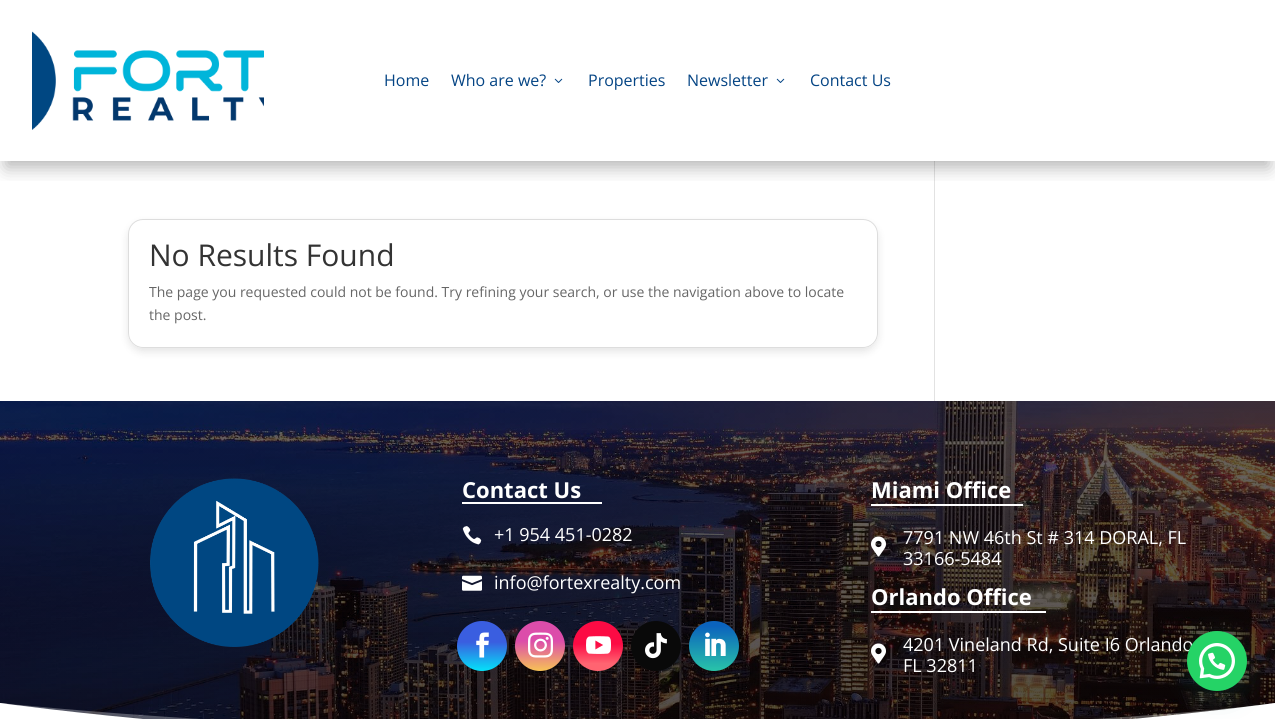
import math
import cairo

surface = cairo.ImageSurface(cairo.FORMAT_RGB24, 1275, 719)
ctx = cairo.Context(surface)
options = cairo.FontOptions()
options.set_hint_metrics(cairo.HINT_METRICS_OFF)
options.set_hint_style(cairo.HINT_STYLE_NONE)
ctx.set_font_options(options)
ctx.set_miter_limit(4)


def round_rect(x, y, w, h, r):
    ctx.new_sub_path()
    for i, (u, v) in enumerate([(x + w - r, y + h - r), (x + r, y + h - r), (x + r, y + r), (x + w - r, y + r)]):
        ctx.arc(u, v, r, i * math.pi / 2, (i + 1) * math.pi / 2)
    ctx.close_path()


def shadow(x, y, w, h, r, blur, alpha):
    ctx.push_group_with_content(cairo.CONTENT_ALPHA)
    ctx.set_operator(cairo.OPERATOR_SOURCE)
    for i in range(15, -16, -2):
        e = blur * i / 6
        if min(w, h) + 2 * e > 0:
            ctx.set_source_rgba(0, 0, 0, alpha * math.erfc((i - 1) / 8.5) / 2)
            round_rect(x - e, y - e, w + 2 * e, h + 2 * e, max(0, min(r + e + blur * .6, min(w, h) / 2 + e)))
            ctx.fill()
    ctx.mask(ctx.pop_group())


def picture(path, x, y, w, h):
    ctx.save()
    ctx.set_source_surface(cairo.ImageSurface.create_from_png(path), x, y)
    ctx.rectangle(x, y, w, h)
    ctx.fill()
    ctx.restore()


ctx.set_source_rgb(1, 1, 1)
ctx.paint()
ctx.set_source_rgb(0.886, 0.886, 0.886)
ctx.rectangle(934, 161, 1, 240)
ctx.fill()
ctx.save()
ctx.rectangle(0, 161, 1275, 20)
ctx.clip()
ctx.set_source_rgb(0, 0, 0)
shadow(6, 18, 1263, 149, 0, 9, 0.3)
ctx.restore()
picture("img1.png", 32, 31, 232, 99)
ctx.select_font_face("Open Sans")
ctx.set_font_size(16)
ctx.set_source_rgb(0.016, 0.267, 0.518)
ctx.move_to(384, 86)
ctx.show_text("Home")
ctx.move_to(451, 86)
ctx.show_text("Who are we?")
picture("img2.png", 554, 78, 9, 5)
ctx.move_to(588, 86)
ctx.show_text("Properties")
ctx.move_to(687, 86)
ctx.show_text("Newsletter")
picture("img2.png", 776, 78, 9, 5)
ctx.move_to(810, 86)
ctx.show_text("Contact Us")
ctx.save()
ctx.set_fill_rule(cairo.FILL_RULE_EVEN_ODD)
ctx.new_path()
ctx.move_to(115, 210)
ctx.line_to(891, 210)
ctx.line_to(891, 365)
ctx.line_to(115, 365)
ctx.close_path()
ctx.move_to(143, 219)
ctx.line_to(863, 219)
ctx.curve_to(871.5, 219, 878, 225.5, 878, 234)
ctx.line_to(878, 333)
ctx.curve_to(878, 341.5, 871.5, 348, 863, 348)
ctx.line_to(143, 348)
ctx.curve_to(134.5, 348, 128, 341.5, 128, 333)
ctx.line_to(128, 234)
ctx.curve_to(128, 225.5, 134.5, 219, 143, 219)
ctx.close_path()
ctx.clip()
ctx.set_source_rgb(0, 0, 0)
shadow(128, 223, 750, 129, 15, 4, 0.1)
ctx.restore()
round_rect(128.5, 219.5, 749, 128, 14.5)
ctx.set_source_rgb(0.867, 0.867, 0.867)
ctx.set_line_width(1)
ctx.stroke()
ctx.set_font_size(30)
ctx.set_source_rgb(0.2, 0.2, 0.2)
ctx.move_to(149, 266)
ctx.show_text("No Results Found")
ctx.set_font_size(14)
ctx.set_source_rgb(0.4, 0.4, 0.4)
ctx.move_to(149, 297)
ctx.show_text("The page you requested could not be found. Try refining your search, or use the navigation above to locate")
ctx.move_to(149, 320)
ctx.show_text("the post.")
picture("img3.png", 0, 401, 1275, 318)
picture("img4.png", 150, 478, 169, 169)
ctx.select_font_face("Open Sans", cairo.FONT_SLANT_NORMAL, cairo.FONT_WEIGHT_BOLD)
ctx.set_font_size(22)
ctx.set_source_rgb(1, 1, 1)
ctx.move_to(462, 498)
ctx.show_text("Contact Us")
ctx.rectangle(462, 502, 140, 2)
ctx.fill()
picture("img5.png", 462, 526, 20, 19)
ctx.select_font_face("Open Sans")
ctx.set_font_size(18)
ctx.move_to(494, 541)
ctx.show_text("+1 954 451-0282")
picture("img6.png", 462, 575, 20, 16)
ctx.move_to(494, 589)
ctx.show_text("info@fortexrealty.com")
gradient = cairo.LinearGradient(482, 621, 482, 671)
gradient.add_color_stop_rgba(0.42, 0.227, 0.369, 0.878, 1)
gradient.add_color_stop_rgba(1, 0.016, 0.886, 0.976, 1)
ctx.set_source(gradient)
ctx.new_path()
ctx.arc(482, 646, 25, 0, 2 * math.pi)
ctx.fill()
picture("img7.png", 476, 632, 13, 26)
gradient = cairo.LinearGradient(540, 621, 540, 671)
gradient.add_color_stop_rgba(0.4, 0.863, 0.302, 0.667, 1)
gradient.add_color_stop_rgba(1, 0.969, 0.765, 0.333, 1)
ctx.set_source(gradient)
ctx.arc(540, 646, 25, 0, 2 * math.pi)
ctx.fill()
picture("img8.png", 528, 632, 25, 26)
gradient = cairo.LinearGradient(598, 621, 598, 671)
gradient.add_color_stop_rgba(0.46, 0.988, 0.043, 0.267, 1)
gradient.add_color_stop_rgba(0.85, 1, 0.392, 0.443, 1)
ctx.set_source(gradient)
ctx.arc(598, 646, 25, 0, 2 * math.pi)
ctx.fill()
picture("img9.png", 586, 636, 25, 18)
ctx.set_source_rgb(0.039, 0.039, 0.039)
ctx.arc(656, 646, 25, 0, 2 * math.pi)
ctx.fill()
picture("img10.png", 645, 633, 22, 26)
gradient = cairo.LinearGradient(714, 621, 714, 671)
gradient.add_color_stop_rgba(0.1, 0.043, 0.388, 0.741, 1)
gradient.add_color_stop_rgba(1, 0.161, 0.769, 0.663, 1)
ctx.set_source(gradient)
ctx.arc(714, 646, 25, 0, 2 * math.pi)
ctx.fill()
picture("img11.png", 705, 632, 21, 24)
ctx.select_font_face("Open Sans", cairo.FONT_SLANT_NORMAL, cairo.FONT_WEIGHT_BOLD)
ctx.set_font_size(22)
ctx.set_source_rgb(1, 1, 1)
ctx.move_to(871, 498)
ctx.show_text("Miami Office")
ctx.rectangle(871, 504, 152, 2)
ctx.fill()
picture("img12.png", 871, 536, 15, 21)
ctx.select_font_face("Open Sans")
ctx.set_font_size(18)
ctx.move_to(903, 544)
ctx.show_text("7791 NW 46th St # 314 DORAL, FL")
ctx.move_to(903, 565)
ctx.show_text("33166-5484")
ctx.select_font_face("Open Sans", cairo.FONT_SLANT_NORMAL, cairo.FONT_WEIGHT_BOLD)
ctx.set_font_size(22)
ctx.move_to(871, 605)
ctx.show_text("Orlando Office")
ctx.rectangle(871, 611, 175, 2)
ctx.fill()
picture("img13.png", 871, 643, 15, 21)
ctx.select_font_face("Open Sans")
ctx.set_font_size(18)
ctx.move_to(903, 651)
ctx.show_text("4201 Vineland Rd, Suite I6 Orlando")
ctx.move_to(903, 672)
ctx.show_text("FL 32811")
ctx.set_source_rgba(1, 1, 1, 0.3)
ctx.new_path()
ctx.move_to(722, 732)
ctx.curve_to(324, 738, 0, 703, 0, 703)
ctx.line_to(0, 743)
ctx.line_to(1275, 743)
ctx.line_to(1275, 703)
ctx.curve_to(1275, 703, 1121, 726, 722, 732)
ctx.close_path()
ctx.fill()
ctx.set_source_rgb(1, 1, 1)
ctx.new_path()
ctx.move_to(638, 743)
ctx.curve_to(990, 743, 1275, 703, 1275, 703)
ctx.line_to(1275, 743)
ctx.line_to(0, 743)
ctx.line_to(0, 703)
ctx.curve_to(0, 703, 285, 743, 638, 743)
ctx.close_path()
ctx.fill()
ctx.set_source_rgb(0.027, 0.369, 0.329)
shadow(1188, 637, 60, 60, 30, 12, 0.24)
ctx.set_source_rgb(0.145, 0.827, 0.4)
ctx.arc(1217, 661, 30, 0, 2 * math.pi)
ctx.fill()
picture("img14.png", 1199, 643, 36, 36)
surface.write_to_png("page.png")
